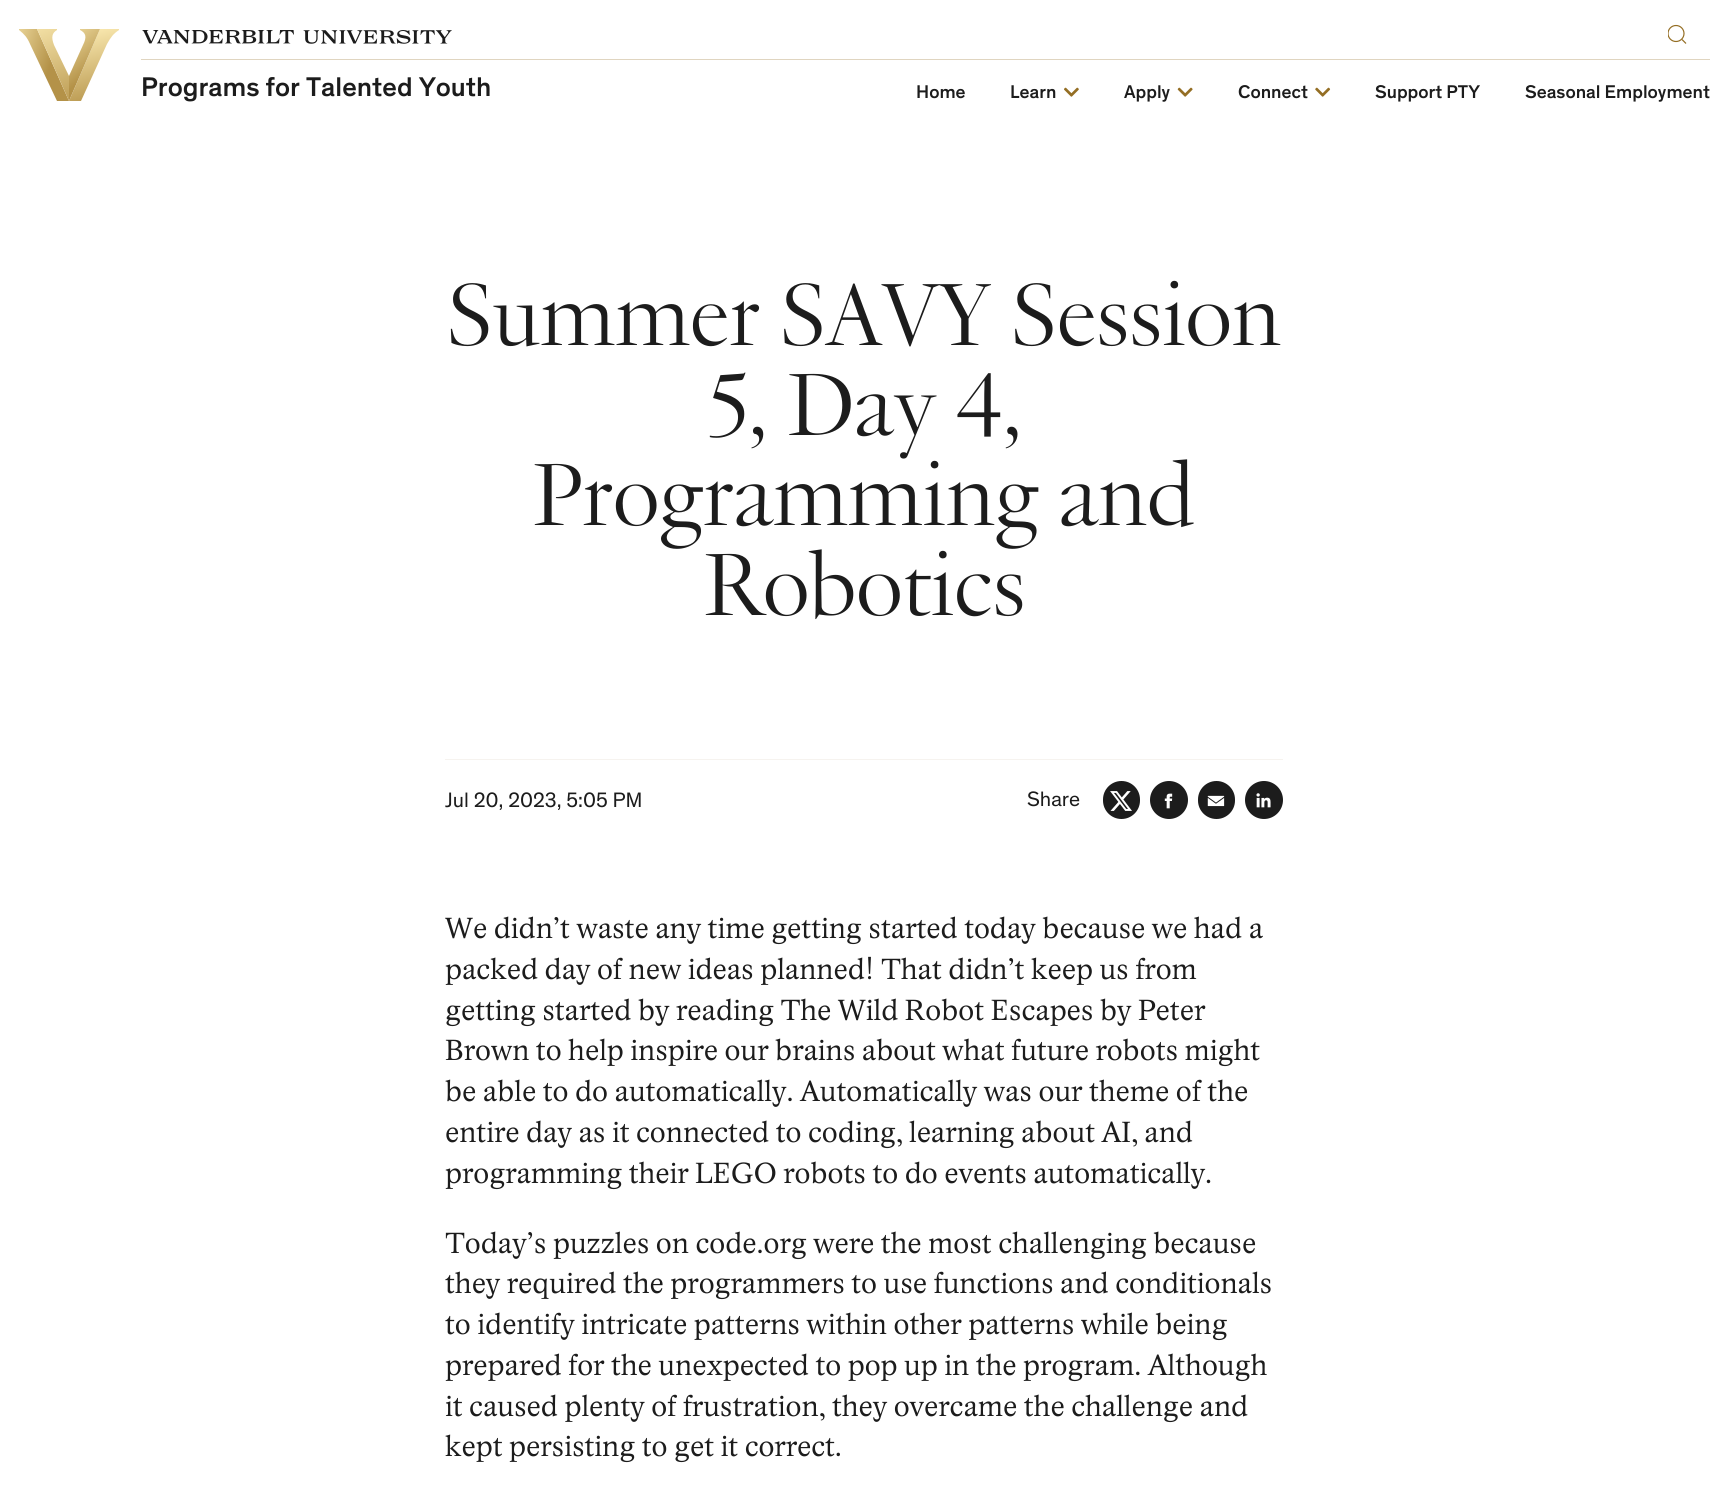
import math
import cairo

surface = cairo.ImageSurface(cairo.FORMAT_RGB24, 1727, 1488)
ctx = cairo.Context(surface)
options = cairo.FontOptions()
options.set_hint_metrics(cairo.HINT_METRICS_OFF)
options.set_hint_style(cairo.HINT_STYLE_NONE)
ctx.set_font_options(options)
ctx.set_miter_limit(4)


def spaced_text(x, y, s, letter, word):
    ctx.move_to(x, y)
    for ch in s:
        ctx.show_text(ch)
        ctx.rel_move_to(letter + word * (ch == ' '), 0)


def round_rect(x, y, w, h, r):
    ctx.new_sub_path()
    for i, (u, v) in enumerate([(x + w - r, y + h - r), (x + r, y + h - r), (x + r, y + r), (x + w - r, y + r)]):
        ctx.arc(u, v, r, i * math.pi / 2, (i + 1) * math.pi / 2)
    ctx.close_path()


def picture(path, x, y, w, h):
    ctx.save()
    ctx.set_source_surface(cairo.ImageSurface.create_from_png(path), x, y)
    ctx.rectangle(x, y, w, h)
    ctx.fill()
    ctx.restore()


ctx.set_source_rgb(1, 1, 1)
ctx.paint()
gradient = cairo.LinearGradient(-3.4, 37, 53, 57)
gradient.add_color_stop_rgba(0, 0.996, 0.933, 0.714, 1)
gradient.add_color_stop_rgba(1, 0.706, 0.573, 0.282, 1)
ctx.set_source(gradient)
ctx.new_path()
ctx.move_to(37, 29)
ctx.line_to(19, 29)
ctx.line_to(19, 30)
ctx.curve_to(24, 34, 27, 37, 30, 44)
ctx.line_to(57, 101)
ctx.line_to(69, 101)
ctx.close_path()
ctx.fill()
gradient = cairo.LinearGradient(25, 14, 68, 117)
gradient.add_color_stop_rgba(0, 0.996, 0.933, 0.714, 1)
gradient.add_color_stop_rgba(1, 0.706, 0.573, 0.282, 1)
ctx.set_source(gradient)
ctx.new_path()
ctx.move_to(69, 101)
ctx.line_to(69, 76)
ctx.line_to(54, 45)
ctx.curve_to(51, 37, 52, 33, 57, 30)
ctx.line_to(57, 29)
ctx.line_to(37, 29)
ctx.close_path()
ctx.fill()
gradient = cairo.LinearGradient(69, 30, 90, 109)
gradient.add_color_stop_rgba(0, 0.996, 0.933, 0.714, 1)
gradient.add_color_stop_rgba(1, 0.706, 0.573, 0.282, 1)
ctx.set_source(gradient)
ctx.new_path()
ctx.move_to(100, 29)
ctx.line_to(119, 29)
ctx.line_to(119, 30)
ctx.curve_to(113, 34, 111, 37, 107, 44)
ctx.line_to(81, 101)
ctx.line_to(69, 101)
ctx.close_path()
ctx.fill()
gradient = cairo.LinearGradient(54, 25, 92, 71)
gradient.add_color_stop_rgba(0, 0.996, 0.933, 0.714, 1)
gradient.add_color_stop_rgba(1, 0.706, 0.573, 0.282, 1)
ctx.set_source(gradient)
ctx.new_path()
ctx.move_to(69, 101)
ctx.line_to(69, 76)
ctx.line_to(83, 45)
ctx.curve_to(87, 37, 86, 33, 80, 30)
ctx.line_to(80, 29)
ctx.line_to(100, 29)
ctx.close_path()
ctx.fill()
picture("img1.png", 142, 30, 310, 14)
ctx.save()
ctx.rectangle(1668, 24, 20, 20)
ctx.clip()
ctx.arc(1676, 33.5, 8, 0, 2 * math.pi)
ctx.set_source_rgb(0.58, 0.431, 0.141)
ctx.set_line_width(1.2)
ctx.stroke()
ctx.restore()
ctx.new_path()
ctx.move_to(1682, 39.5)
ctx.line_to(1686, 43.5)
ctx.set_source_rgb(0.58, 0.431, 0.141)
ctx.set_line_width(1.2)
ctx.stroke()
ctx.set_source_rgb(0.878, 0.835, 0.753)
ctx.rectangle(141, 59, 1569, 1)
ctx.fill()
ctx.select_font_face("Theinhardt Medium")
ctx.set_font_size(27.5)
ctx.set_source_rgb(0.11, 0.11, 0.11)
ctx.move_to(141, 96)
ctx.show_text("Programs for Talented Youth")
ctx.set_font_size(18.75)
ctx.move_to(916, 98)
ctx.show_text("Home")
ctx.move_to(1010, 98)
ctx.show_text("Learn")
picture("img2.png", 1064, 87, 15, 10)
ctx.move_to(1124, 98)
ctx.show_text("Apply")
picture("img3.png", 1177, 87, 16, 10)
ctx.move_to(1238, 98)
ctx.show_text("Connect")
picture("img4.png", 1315, 87, 16, 10)
ctx.move_to(1375, 98)
ctx.show_text("Support PTY")
ctx.move_to(1525, 98)
ctx.show_text("Seasonal Employment")
ctx.select_font_face("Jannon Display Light")
ctx.set_font_size(90)
spaced_text(446, 345, "Summer SAVY Session", -1.4, 0)
spaced_text(707, 435, "5, Day 4,", -1.4, 0)
spaced_text(532, 525, "Programming and", -1.4, 0)
spaced_text(703, 615, "Robotics", -1.4, 0)
ctx.set_source_rgb(0.961, 0.953, 0.937)
ctx.rectangle(445, 759, 838, 1)
ctx.fill()
ctx.select_font_face("Theinhardt")
ctx.set_font_size(21.25)
ctx.set_source_rgb(0.11, 0.11, 0.11)
ctx.move_to(445, 807)
ctx.show_text("Jul 20, 2023, 5:05 PM")
ctx.move_to(1027, 806)
ctx.show_text("Share")
round_rect(1103, 781, 37, 38, 18.5)
ctx.fill()
picture("img5.png", 1110, 791, 22, 20)
ctx.arc(1169, 800, 19, 0, 2 * math.pi)
ctx.fill()
picture("img6.png", 1164, 793, 9, 16)
round_rect(1198, 781, 37, 38, 18.5)
ctx.fill()
picture("img7.png", 1207, 795, 18, 12)
ctx.arc(1264, 800, 19, 0, 2 * math.pi)
ctx.fill()
picture("img8.png", 1256, 793, 15, 15)
ctx.select_font_face("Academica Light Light")
ctx.set_font_size(29.15)
ctx.move_to(445, 938)
ctx.show_text("We didn’t waste any time getting started today because we had a")
ctx.move_to(445, 979)
ctx.show_text("packed day of new ideas planned! That didn’t keep us from")
ctx.move_to(445, 1020)
ctx.show_text("getting started by reading The Wild Robot Escapes by Peter")
ctx.move_to(445, 1060)
ctx.show_text("Brown to help inspire our brains about what future robots might")
ctx.move_to(445, 1101)
ctx.show_text("be able to do automatically. Automatically was our theme of the")
ctx.move_to(445, 1142)
ctx.show_text("entire day as it connected to coding, learning about AI, and")
ctx.move_to(445, 1183)
ctx.show_text("programming their LEGO robots to do events automatically.")
ctx.move_to(445, 1253)
ctx.show_text("Today’s puzzles on code.org were the most challenging because")
ctx.move_to(445, 1293)
ctx.show_text("they required the programmers to use functions and conditionals")
ctx.move_to(445, 1334)
ctx.show_text("to identify intricate patterns within other patterns while being")
ctx.move_to(445, 1375)
ctx.show_text("prepared for the unexpected to pop up in the program. Although")
ctx.move_to(445, 1416)
ctx.show_text("it caused plenty of frustration, they overcame the challenge and")
ctx.move_to(445, 1456)
ctx.show_text("kept persisting to get it correct.")
surface.write_to_png("page.png")
